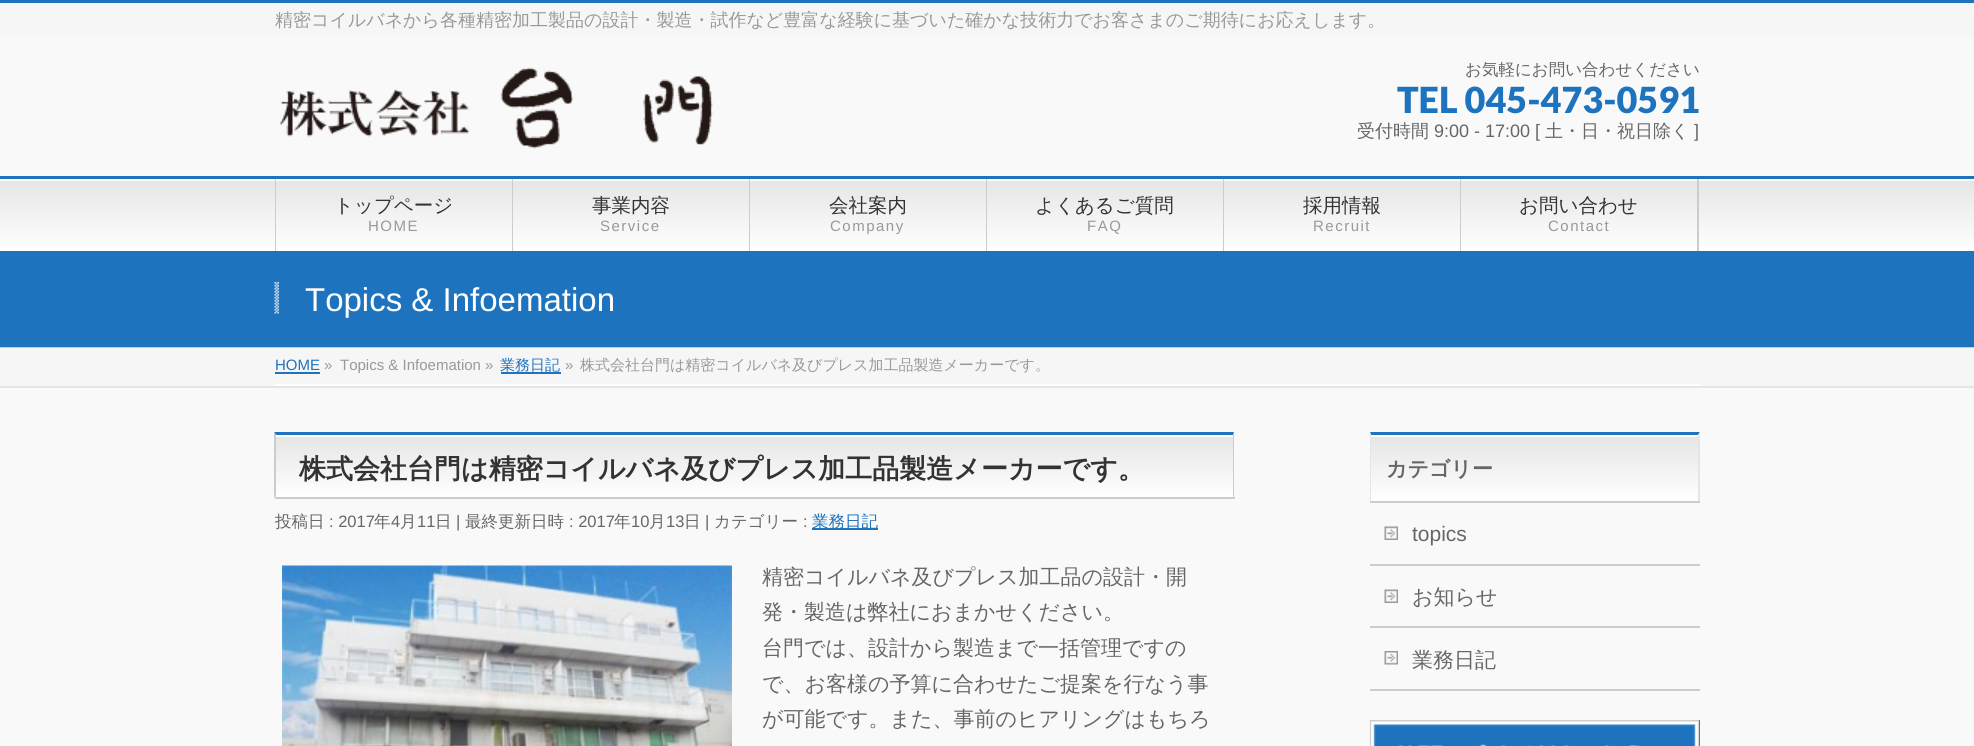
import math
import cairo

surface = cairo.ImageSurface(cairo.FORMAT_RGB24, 1974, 746)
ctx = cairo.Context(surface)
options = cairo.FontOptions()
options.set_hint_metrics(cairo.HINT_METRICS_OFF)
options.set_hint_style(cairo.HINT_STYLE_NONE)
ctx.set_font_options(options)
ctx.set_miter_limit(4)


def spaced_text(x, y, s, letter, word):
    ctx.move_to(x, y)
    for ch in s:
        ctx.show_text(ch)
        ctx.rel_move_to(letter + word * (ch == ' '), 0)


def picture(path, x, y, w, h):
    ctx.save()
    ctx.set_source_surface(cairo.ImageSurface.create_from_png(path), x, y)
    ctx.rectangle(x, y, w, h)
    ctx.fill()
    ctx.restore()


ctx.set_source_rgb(0.976, 0.976, 0.976)
ctx.paint()
ctx.set_source_rgb(0.961, 0.961, 0.961)
ctx.rectangle(0, 3, 1974, 33)
ctx.fill()
ctx.set_source_rgb(0.118, 0.451, 0.745)
ctx.rectangle(0, 0, 1974, 3)
ctx.fill()
ctx.select_font_face("WenQuanYi Zen Hei Medium")
ctx.set_font_size(18)
ctx.set_source_rgb(0.6, 0.6, 0.6)
ctx.move_to(275, 26)
ctx.show_text("精密コイルバネから各種精密加工製品の設計・製造・試作など豊富な経験に基づいた確かな技術力でお客さまのご期待にお応えします。")
picture("img1.png", 279, 67, 434, 82)
ctx.set_font_size(16.5)
ctx.set_source_rgb(0.4, 0.4, 0.4)
ctx.move_to(1465, 75)
ctx.show_text("お気軽にお問い合わせください")
ctx.select_font_face("Lato Black")
ctx.set_font_size(36)
ctx.set_source_rgb(0.118, 0.451, 0.745)
ctx.move_to(1397, 113)
ctx.show_text("TEL 045-473-0591")
ctx.select_font_face("WenQuanYi Zen Hei Medium")
ctx.set_font_size(18)
ctx.set_source_rgb(0.4, 0.4, 0.4)
ctx.move_to(1357, 137)
ctx.show_text("受付時間")
ctx.select_font_face("Liberation Sans")
ctx.move_to(1434, 137)
ctx.show_text("9:00 - 17:00 [")
ctx.select_font_face("WenQuanYi Zen Hei Medium")
ctx.move_to(1545, 137)
ctx.show_text("土・日・祝日除く")
ctx.select_font_face("Liberation Sans")
ctx.move_to(1694, 137)
ctx.show_text("]")
gradient = cairo.LinearGradient(0, 179, 0, 251)
gradient.add_color_stop_rgba(0, 0.898, 0.898, 0.898, 1)
gradient.add_color_stop_rgba(1, 1, 1, 1, 1)
ctx.set_source(gradient)
ctx.rectangle(0, 181, 1974, 70)
ctx.fill()
ctx.set_source_rgb(1, 1, 1)
ctx.rectangle(0, 179, 1974, 2)
ctx.fill()
ctx.set_source_rgb(0.118, 0.451, 0.745)
ctx.rectangle(0, 176, 1974, 3)
ctx.fill()
ctx.set_source_rgb(0.8, 0.8, 0.8)
ctx.rectangle(275, 179, 1, 72)
ctx.fill()
ctx.rectangle(512, 179, 1, 72)
ctx.fill()
ctx.select_font_face("WenQuanYi Zen Hei Medium")
ctx.set_font_size(19.5)
ctx.set_source_rgb(0.2, 0.2, 0.2)
ctx.move_to(334, 212)
ctx.show_text("トップページ")
ctx.select_font_face("Liberation Sans")
ctx.set_font_size(15)
ctx.set_source_rgb(0.6, 0.6, 0.6)
spaced_text(368, 231, "HOME", 1.5, 0)
ctx.set_source_rgb(0.8, 0.8, 0.8)
ctx.rectangle(749, 179, 1, 72)
ctx.fill()
ctx.select_font_face("WenQuanYi Zen Hei Medium")
ctx.set_font_size(19.5)
ctx.set_source_rgb(0.2, 0.2, 0.2)
ctx.move_to(592, 212)
ctx.show_text("事業内容")
ctx.select_font_face("Liberation Sans")
ctx.set_font_size(15)
ctx.set_source_rgb(0.6, 0.6, 0.6)
spaced_text(600, 231, "Service", 1.5, 0)
ctx.set_source_rgb(0.8, 0.8, 0.8)
ctx.rectangle(986, 179, 1, 72)
ctx.fill()
ctx.select_font_face("WenQuanYi Zen Hei Medium")
ctx.set_font_size(19.5)
ctx.set_source_rgb(0.2, 0.2, 0.2)
ctx.move_to(829, 212)
ctx.show_text("会社案内")
ctx.select_font_face("Liberation Sans")
ctx.set_font_size(15)
ctx.set_source_rgb(0.6, 0.6, 0.6)
spaced_text(830, 231, "Company", 1.5, 0)
ctx.set_source_rgb(0.8, 0.8, 0.8)
ctx.rectangle(1223, 179, 1, 72)
ctx.fill()
ctx.select_font_face("WenQuanYi Zen Hei Medium")
ctx.set_font_size(19.5)
ctx.set_source_rgb(0.2, 0.2, 0.2)
ctx.move_to(1035, 212)
ctx.show_text("よくあるご質問")
ctx.select_font_face("Liberation Sans")
ctx.set_font_size(15)
ctx.set_source_rgb(0.6, 0.6, 0.6)
spaced_text(1087, 231, "FAQ", 1.5, 0)
ctx.set_source_rgb(0.8, 0.8, 0.8)
ctx.rectangle(1460, 179, 1, 72)
ctx.fill()
ctx.select_font_face("WenQuanYi Zen Hei Medium")
ctx.set_font_size(19.5)
ctx.set_source_rgb(0.2, 0.2, 0.2)
ctx.move_to(1303, 212)
ctx.show_text("採用情報")
ctx.select_font_face("Liberation Sans")
ctx.set_font_size(15)
ctx.set_source_rgb(0.6, 0.6, 0.6)
spaced_text(1313, 231, "Recruit", 1.5, 0)
ctx.set_source_rgb(0.8, 0.8, 0.8)
ctx.rectangle(1697, 179, 2, 72)
ctx.fill()
ctx.select_font_face("WenQuanYi Zen Hei Medium")
ctx.set_font_size(19.5)
ctx.set_source_rgb(0.2, 0.2, 0.2)
ctx.move_to(1519, 212)
ctx.show_text("お問い合わせ")
ctx.select_font_face("Liberation Sans")
ctx.set_font_size(15)
ctx.set_source_rgb(0.6, 0.6, 0.6)
spaced_text(1548, 231, "Contact", 1.5, 0)
ctx.set_source_rgb(0.118, 0.451, 0.745)
ctx.rectangle(0, 251, 1974, 96)
ctx.fill()
ctx.set_source_rgb(0.8, 0.8, 0.8)
ctx.rectangle(0, 347, 1974, 1)
ctx.fill()
picture("img2.png", 274, 282, 5, 32)
ctx.set_font_size(33)
ctx.set_source_rgb(1, 1, 1)
ctx.move_to(305, 311)
ctx.show_text("Topics & Infoemation")
ctx.set_source_rgb(0.961, 0.961, 0.961)
ctx.rectangle(0, 348, 1974, 38)
ctx.fill()
ctx.set_source_rgb(0.898, 0.898, 0.898)
ctx.rectangle(0, 386, 1974, 2)
ctx.fill()
ctx.set_source_rgb(1, 1, 1)
ctx.rectangle(275, 384, 1425, 2)
ctx.fill()
ctx.set_font_size(15)
ctx.set_source_rgb(0.118, 0.451, 0.745)
ctx.move_to(275, 370)
ctx.show_text("HOME")
ctx.rectangle(275, 372, 45, 2)
ctx.fill()
ctx.set_source_rgb(0.6, 0.6, 0.6)
ctx.move_to(324, 370)
ctx.show_text("»")
ctx.move_to(340, 370)
ctx.show_text("Topics & Infoemation »")
ctx.select_font_face("WenQuanYi Zen Hei Medium")
ctx.set_source_rgb(0.118, 0.451, 0.745)
ctx.move_to(500, 370)
ctx.show_text("業務日記")
ctx.rectangle(501, 372, 60, 2)
ctx.fill()
ctx.select_font_face("Liberation Sans")
ctx.set_source_rgb(0.6, 0.6, 0.6)
ctx.move_to(565, 370)
ctx.show_text("»")
ctx.select_font_face("WenQuanYi Zen Hei Medium")
ctx.move_to(580, 370)
ctx.show_text("株式会社台門は精密コイルバネ及びプレス加工品製造メーカーです。")
gradient = cairo.LinearGradient(276, 435, 276, 497)
gradient.add_color_stop_rgba(0, 0.898, 0.898, 0.898, 1)
gradient.add_color_stop_rgba(1, 1, 1, 1, 1)
ctx.set_source(gradient)
ctx.rectangle(276, 437, 957, 60)
ctx.fill()
ctx.set_source_rgb(1, 1, 1)
ctx.rectangle(276, 435, 957, 2)
ctx.fill()
ctx.set_source_rgb(0.118, 0.451, 0.745)
ctx.new_path()
ctx.move_to(274, 432)
ctx.line_to(1234, 432)
ctx.line_to(1233, 435)
ctx.line_to(276, 435)
ctx.close_path()
ctx.fill()
ctx.set_source_rgb(0.8, 0.8, 0.8)
ctx.new_path()
ctx.move_to(1234, 432)
ctx.line_to(1234, 498)
ctx.line_to(1233, 496)
ctx.line_to(1233, 435)
ctx.close_path()
ctx.fill()
ctx.rectangle(275, 497, 960, 2)
ctx.fill()
ctx.new_path()
ctx.move_to(274, 498)
ctx.line_to(274, 432)
ctx.line_to(276, 435)
ctx.line_to(276, 496)
ctx.close_path()
ctx.fill()
ctx.select_font_face("WenQuanYi Zen Hei", cairo.FONT_SLANT_NORMAL, cairo.FONT_WEIGHT_BOLD)
ctx.set_font_size(27)
ctx.set_source_rgb(0.2, 0.2, 0.2)
ctx.move_to(299, 478)
ctx.show_text("株式会社台門は精密コイルバネ及びプレス加工品製造メーカーです。")
ctx.select_font_face("WenQuanYi Zen Hei Medium")
ctx.set_font_size(16.5)
ctx.set_source_rgb(0.4, 0.4, 0.4)
ctx.move_to(275, 527)
ctx.show_text("投稿日")
ctx.select_font_face("Liberation Sans")
ctx.move_to(329, 527)
ctx.show_text(": 2017")
ctx.select_font_face("WenQuanYi Zen Hei Medium")
ctx.move_to(374, 527)
ctx.show_text("年")
ctx.select_font_face("Liberation Sans")
ctx.move_to(391, 527)
ctx.show_text("4")
ctx.select_font_face("WenQuanYi Zen Hei Medium")
ctx.move_to(400, 527)
ctx.show_text("月")
ctx.select_font_face("Liberation Sans")
ctx.move_to(417, 527)
ctx.show_text("11")
ctx.select_font_face("WenQuanYi Zen Hei Medium")
ctx.move_to(435, 527)
ctx.show_text("日")
ctx.select_font_face("Liberation Sans")
ctx.move_to(456, 527)
ctx.show_text("|")
ctx.select_font_face("WenQuanYi Zen Hei Medium")
ctx.move_to(465, 527)
ctx.show_text("最終更新日時")
ctx.select_font_face("Liberation Sans")
ctx.move_to(569, 527)
ctx.show_text(": 2017")
ctx.select_font_face("WenQuanYi Zen Hei Medium")
ctx.move_to(614, 527)
ctx.show_text("年")
ctx.select_font_face("Liberation Sans")
ctx.move_to(631, 527)
ctx.show_text("10")
ctx.select_font_face("WenQuanYi Zen Hei Medium")
ctx.move_to(649, 527)
ctx.show_text("月")
ctx.select_font_face("Liberation Sans")
ctx.move_to(666, 527)
ctx.show_text("13")
ctx.select_font_face("WenQuanYi Zen Hei Medium")
ctx.move_to(684, 527)
ctx.show_text("日")
ctx.select_font_face("Liberation Sans")
ctx.move_to(705, 527)
ctx.show_text("|")
ctx.select_font_face("WenQuanYi Zen Hei Medium")
ctx.move_to(714, 527)
ctx.show_text("カテゴリー")
ctx.select_font_face("Liberation Sans")
ctx.move_to(803, 527)
ctx.show_text(":")
ctx.set_source_rgb(0.118, 0.451, 0.745)
ctx.rectangle(812, 528, 66, 2)
ctx.fill()
ctx.select_font_face("WenQuanYi Zen Hei Medium")
ctx.move_to(812, 527)
ctx.show_text("業務日記")
picture("img3.png", 282, 565, 450, 181)
ctx.set_font_size(21)
ctx.set_source_rgb(0.4, 0.4, 0.4)
ctx.move_to(762, 584)
ctx.show_text("精密コイルバネ及びプレス加工品の設計・開")
ctx.move_to(762, 619)
ctx.show_text("発・製造は弊社におまかせください。")
ctx.move_to(762, 655)
ctx.show_text("台門では、設計から製造まで一括管理ですの")
ctx.move_to(762, 691)
ctx.show_text("で、お客様の予算に合わせたご提案を行なう事")
ctx.move_to(762, 726)
ctx.show_text("が可能です。また、事前のヒアリングはもちろ")
gradient = cairo.LinearGradient(1371, 435, 1371, 501)
gradient.add_color_stop_rgba(0, 0.898, 0.898, 0.898, 1)
gradient.add_color_stop_rgba(1, 1, 1, 1, 1)
ctx.set_source(gradient)
ctx.rectangle(1371, 437, 327, 64)
ctx.fill()
ctx.set_source_rgb(1, 1, 1)
ctx.rectangle(1371, 435, 327, 2)
ctx.fill()
ctx.set_source_rgb(0.118, 0.451, 0.745)
ctx.new_path()
ctx.move_to(1370, 432)
ctx.line_to(1700, 432)
ctx.line_to(1698, 435)
ctx.line_to(1371, 435)
ctx.close_path()
ctx.fill()
ctx.set_source_rgb(0.898, 0.898, 0.898)
ctx.new_path()
ctx.move_to(1700, 432)
ctx.line_to(1700, 502)
ctx.line_to(1698, 501)
ctx.line_to(1698, 435)
ctx.close_path()
ctx.fill()
ctx.set_source_rgb(0.8, 0.8, 0.8)
ctx.rectangle(1370, 501, 330, 2)
ctx.fill()
ctx.set_source_rgb(0.898, 0.898, 0.898)
ctx.new_path()
ctx.move_to(1370, 502)
ctx.line_to(1370, 432)
ctx.line_to(1371, 435)
ctx.line_to(1371, 501)
ctx.close_path()
ctx.fill()
ctx.select_font_face("WenQuanYi Zen Hei", cairo.FONT_SLANT_NORMAL, cairo.FONT_WEIGHT_BOLD)
ctx.set_source_rgb(0.4, 0.4, 0.4)
ctx.move_to(1386, 476)
ctx.show_text("カテゴリー")
ctx.set_source_rgb(0.8, 0.8, 0.8)
ctx.rectangle(1370, 564, 330, 2)
ctx.fill()
picture("img4.png", 1384, 526, 14, 14)
ctx.select_font_face("Liberation Sans")
ctx.set_source_rgb(0.4, 0.4, 0.4)
ctx.move_to(1412, 541)
ctx.show_text("topics")
ctx.set_source_rgb(0.8, 0.8, 0.8)
ctx.rectangle(1370, 626, 330, 2)
ctx.fill()
picture("img4.png", 1384, 589, 14, 14)
ctx.select_font_face("WenQuanYi Zen Hei Medium")
ctx.set_source_rgb(0.4, 0.4, 0.4)
ctx.move_to(1412, 604)
ctx.show_text("お知らせ")
ctx.set_source_rgb(0.8, 0.8, 0.8)
ctx.rectangle(1370, 689, 330, 2)
ctx.fill()
picture("img5.png", 1384, 651, 14, 14)
ctx.set_source_rgb(0.4, 0.4, 0.4)
ctx.move_to(1412, 667)
ctx.show_text("業務日記")
ctx.set_source_rgb(0.118, 0.451, 0.745)
ctx.rectangle(1373, 720, 327, 26)
ctx.fill()
picture("img6.png", 1369, 720, 331, 26)
surface.write_to_png("page.png")
